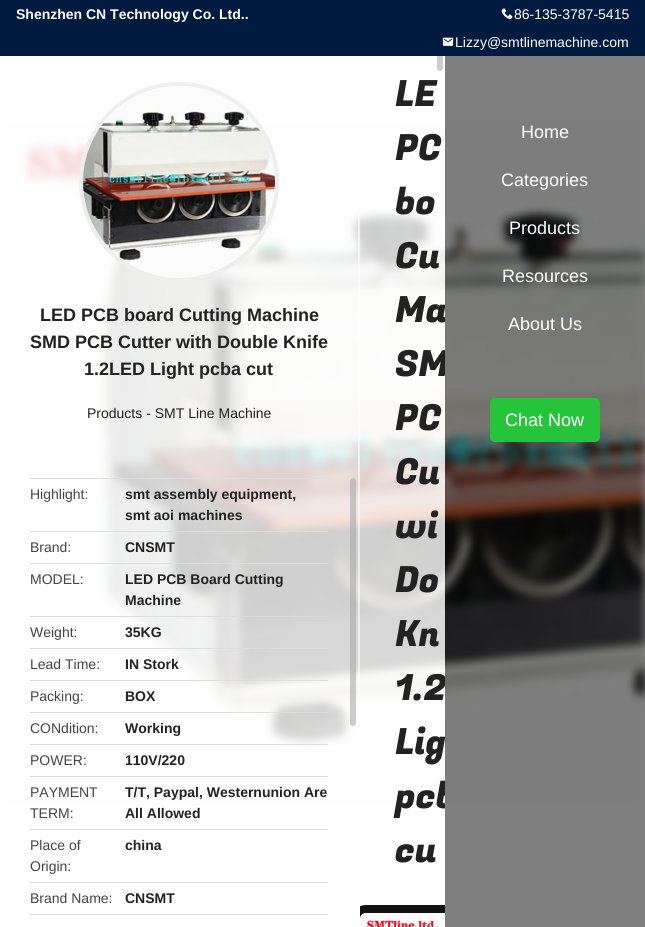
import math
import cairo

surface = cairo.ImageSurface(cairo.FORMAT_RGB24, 645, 927)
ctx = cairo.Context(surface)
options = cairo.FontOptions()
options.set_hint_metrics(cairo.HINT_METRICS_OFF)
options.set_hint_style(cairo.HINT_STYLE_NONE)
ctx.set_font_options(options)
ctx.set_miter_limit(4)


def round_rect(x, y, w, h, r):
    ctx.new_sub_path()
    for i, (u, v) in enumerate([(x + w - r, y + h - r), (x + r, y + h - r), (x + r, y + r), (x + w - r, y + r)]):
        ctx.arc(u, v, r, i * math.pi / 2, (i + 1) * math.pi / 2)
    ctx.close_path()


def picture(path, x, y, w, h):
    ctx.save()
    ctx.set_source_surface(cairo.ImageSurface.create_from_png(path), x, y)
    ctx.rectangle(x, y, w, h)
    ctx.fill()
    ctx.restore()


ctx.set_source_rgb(1, 1, 1)
ctx.paint()
ctx.set_source_rgb(0.8, 0.8, 0.8)
round_rect(437, 28, 6, 43, 3)
ctx.fill()
ctx.set_source_rgb(0, 0.106, 0.247)
ctx.rectangle(0, 0, 645, 56)
ctx.fill()
ctx.select_font_face("Liberation Sans", cairo.FONT_SLANT_NORMAL, cairo.FONT_WEIGHT_BOLD)
ctx.set_font_size(14)
ctx.set_source_rgb(1, 1, 1)
ctx.move_to(16, 19)
ctx.show_text("Shenzhen CN Technology Co. Ltd..")
picture("img1.png", 501, 8, 12, 12)
ctx.select_font_face("Liberation Sans")
ctx.move_to(514, 19)
ctx.show_text("86-135-3787-5415")
picture("img2.png", 442, 37, 12, 9)
ctx.move_to(455, 47)
ctx.show_text("Lizzy@smtlinemachine.com")
picture("img4.png", 5, 122, 640, 683)
ctx.set_source_rgba(1, 1, 1, 0.8)
ctx.rectangle(360, 122, 85, 683)
ctx.fill()
ctx.select_font_face("Fugaz One")
ctx.set_font_size(36)
ctx.set_source_rgb(0.133, 0.133, 0.133)
ctx.move_to(395, 106)
ctx.show_text("LE")
ctx.move_to(395, 160)
ctx.show_text("PC")
ctx.move_to(395, 214)
ctx.show_text("bo")
ctx.move_to(395, 268)
ctx.show_text("Cu")
ctx.save()
ctx.rectangle(360, 28, 85, 899)
ctx.clip()
ctx.move_to(395, 322)
ctx.show_text("Ma")
ctx.move_to(395, 376)
ctx.show_text("SM")
ctx.restore()
ctx.move_to(395, 430)
ctx.show_text("PC")
ctx.move_to(395, 484)
ctx.show_text("Cu")
ctx.move_to(395, 538)
ctx.show_text("wi")
ctx.move_to(395, 592)
ctx.show_text("Do")
ctx.move_to(395, 646)
ctx.show_text("Kn")
ctx.save()
ctx.rectangle(360, 28, 85, 899)
ctx.clip()
ctx.move_to(395, 700)
ctx.show_text("1.2")
ctx.restore()
ctx.move_to(395, 754)
ctx.show_text("Lig")
ctx.save()
ctx.rectangle(360, 28, 85, 899)
ctx.clip()
ctx.move_to(395, 808)
ctx.show_text("pcb")
ctx.restore()
ctx.move_to(395, 862)
ctx.show_text("cu")
ctx.set_source_rgba(0, 0, 0, 0.5)
ctx.rectangle(445, 56, 200, 871)
ctx.fill()
ctx.save()
ctx.rectangle(360, 28, 85, 899)
ctx.clip()
round_rect(356, 909, 279, 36, 10)
ctx.set_source_rgb(0.067, 0.067, 0.067)
ctx.set_line_width(8)
ctx.stroke()
ctx.restore()
picture("img3.png", 360, 913, 85, 14)
ctx.select_font_face("Liberation Sans")
ctx.set_font_size(18)
ctx.set_source_rgb(1, 1, 1)
ctx.move_to(521, 138)
ctx.show_text("Home")
ctx.move_to(501, 186)
ctx.show_text("Categories")
ctx.move_to(509, 234)
ctx.show_text("Products")
ctx.move_to(502, 282)
ctx.show_text("Resources")
ctx.move_to(508, 330)
ctx.show_text("About Us")
ctx.set_source_rgb(0.149, 0.769, 0.227)
round_rect(490, 398, 110, 44, 5)
ctx.fill()
ctx.set_source_rgb(1, 1, 1)
ctx.move_to(505, 426)
ctx.show_text("Chat Now")
ctx.set_source_rgba(1, 1, 1, 0.8)
ctx.rectangle(5, 122, 355, 683)
ctx.fill()
ctx.set_source_rgba(1, 1, 1, 0.6)
ctx.rectangle(358, 213, 2, 485)
ctx.fill()
ctx.arc(179, 182, 98, 0, 2 * math.pi)
ctx.set_source_rgb(0.933, 0.933, 0.933)
ctx.set_line_width(4)
ctx.stroke()
picture("img5.png", 83, 86, 192, 192)
ctx.select_font_face("Liberation Sans", cairo.FONT_SLANT_NORMAL, cairo.FONT_WEIGHT_BOLD)
ctx.set_source_rgb(0.133, 0.133, 0.133)
ctx.move_to(40, 321)
ctx.show_text("LED PCB board Cutting Machine")
ctx.move_to(30, 348)
ctx.show_text("SMD PCB Cutter with Double Knife")
ctx.move_to(84, 375)
ctx.show_text("1.2LED Light pcba cut")
ctx.select_font_face("Liberation Sans")
ctx.set_font_size(14)
ctx.move_to(87, 418)
ctx.show_text("Products - SMT Line Machine")
ctx.set_source_rgb(0.867, 0.867, 0.867)
ctx.rectangle(30, 478, 298, 1)
ctx.fill()
ctx.set_source_rgb(0.267, 0.267, 0.267)
ctx.move_to(30, 499)
ctx.show_text("Highlight:")
ctx.select_font_face("Liberation Sans", cairo.FONT_SLANT_NORMAL, cairo.FONT_WEIGHT_BOLD)
ctx.set_source_rgb(0.133, 0.133, 0.133)
ctx.move_to(125, 499)
ctx.show_text("smt assembly equipment,")
ctx.move_to(125, 520)
ctx.show_text("smt aoi machines")
ctx.set_source_rgb(0.867, 0.867, 0.867)
ctx.rectangle(30, 531, 298, 1)
ctx.fill()
ctx.select_font_face("Liberation Sans")
ctx.set_source_rgb(0.267, 0.267, 0.267)
ctx.move_to(30, 552)
ctx.show_text("Brand:")
ctx.select_font_face("Liberation Sans", cairo.FONT_SLANT_NORMAL, cairo.FONT_WEIGHT_BOLD)
ctx.set_source_rgb(0.133, 0.133, 0.133)
ctx.move_to(125, 552)
ctx.show_text("CNSMT")
ctx.set_source_rgb(0.867, 0.867, 0.867)
ctx.rectangle(30, 563, 298, 1)
ctx.fill()
ctx.select_font_face("Liberation Sans")
ctx.set_source_rgb(0.267, 0.267, 0.267)
ctx.move_to(30, 584)
ctx.show_text("MODEL:")
ctx.select_font_face("Liberation Sans", cairo.FONT_SLANT_NORMAL, cairo.FONT_WEIGHT_BOLD)
ctx.set_source_rgb(0.133, 0.133, 0.133)
ctx.move_to(125, 584)
ctx.show_text("LED PCB Board Cutting")
ctx.move_to(125, 605)
ctx.show_text("Machine")
ctx.set_source_rgb(0.867, 0.867, 0.867)
ctx.rectangle(30, 616, 298, 1)
ctx.fill()
ctx.select_font_face("Liberation Sans")
ctx.set_source_rgb(0.267, 0.267, 0.267)
ctx.move_to(30, 637)
ctx.show_text("Weight:")
ctx.select_font_face("Liberation Sans", cairo.FONT_SLANT_NORMAL, cairo.FONT_WEIGHT_BOLD)
ctx.set_source_rgb(0.133, 0.133, 0.133)
ctx.move_to(125, 637)
ctx.show_text("35KG")
ctx.set_source_rgb(0.867, 0.867, 0.867)
ctx.rectangle(30, 648, 298, 1)
ctx.fill()
ctx.select_font_face("Liberation Sans")
ctx.set_source_rgb(0.267, 0.267, 0.267)
ctx.move_to(30, 669)
ctx.show_text("Lead Time:")
ctx.select_font_face("Liberation Sans", cairo.FONT_SLANT_NORMAL, cairo.FONT_WEIGHT_BOLD)
ctx.set_source_rgb(0.133, 0.133, 0.133)
ctx.move_to(125, 669)
ctx.show_text("IN Stork")
ctx.set_source_rgb(0.867, 0.867, 0.867)
ctx.rectangle(30, 680, 298, 1)
ctx.fill()
ctx.select_font_face("Liberation Sans")
ctx.set_source_rgb(0.267, 0.267, 0.267)
ctx.move_to(30, 701)
ctx.show_text("Packing:")
ctx.select_font_face("Liberation Sans", cairo.FONT_SLANT_NORMAL, cairo.FONT_WEIGHT_BOLD)
ctx.set_source_rgb(0.133, 0.133, 0.133)
ctx.move_to(125, 701)
ctx.show_text("BOX")
ctx.set_source_rgb(0.867, 0.867, 0.867)
ctx.rectangle(30, 712, 298, 1)
ctx.fill()
ctx.select_font_face("Liberation Sans")
ctx.set_source_rgb(0.267, 0.267, 0.267)
ctx.move_to(30, 733)
ctx.show_text("CONdition:")
ctx.select_font_face("Liberation Sans", cairo.FONT_SLANT_NORMAL, cairo.FONT_WEIGHT_BOLD)
ctx.set_source_rgb(0.133, 0.133, 0.133)
ctx.move_to(125, 733)
ctx.show_text("Working")
ctx.set_source_rgb(0.867, 0.867, 0.867)
ctx.rectangle(30, 744, 298, 1)
ctx.fill()
ctx.select_font_face("Liberation Sans")
ctx.set_source_rgb(0.267, 0.267, 0.267)
ctx.move_to(30, 765)
ctx.show_text("POWER:")
ctx.select_font_face("Liberation Sans", cairo.FONT_SLANT_NORMAL, cairo.FONT_WEIGHT_BOLD)
ctx.set_source_rgb(0.133, 0.133, 0.133)
ctx.move_to(125, 765)
ctx.show_text("110V/220")
ctx.set_source_rgb(0.867, 0.867, 0.867)
ctx.rectangle(30, 776, 298, 1)
ctx.fill()
ctx.select_font_face("Liberation Sans")
ctx.set_source_rgb(0.267, 0.267, 0.267)
ctx.move_to(30, 797)
ctx.show_text("PAYMENT")
ctx.move_to(30, 818)
ctx.show_text("TERM:")
ctx.select_font_face("Liberation Sans", cairo.FONT_SLANT_NORMAL, cairo.FONT_WEIGHT_BOLD)
ctx.set_source_rgb(0.133, 0.133, 0.133)
ctx.move_to(125, 797)
ctx.show_text("T/T, Paypal, Westernunion Are")
ctx.move_to(125, 818)
ctx.show_text("All Allowed")
ctx.set_source_rgb(0.867, 0.867, 0.867)
ctx.rectangle(30, 829, 298, 1)
ctx.fill()
ctx.select_font_face("Liberation Sans")
ctx.set_source_rgb(0.267, 0.267, 0.267)
ctx.move_to(30, 850)
ctx.show_text("Place of")
ctx.move_to(30, 871)
ctx.show_text("Origin:")
ctx.select_font_face("Liberation Sans", cairo.FONT_SLANT_NORMAL, cairo.FONT_WEIGHT_BOLD)
ctx.set_source_rgb(0.133, 0.133, 0.133)
ctx.move_to(125, 850)
ctx.show_text("china")
ctx.set_source_rgb(0.867, 0.867, 0.867)
ctx.rectangle(30, 882, 298, 1)
ctx.fill()
ctx.select_font_face("Liberation Sans")
ctx.set_source_rgb(0.267, 0.267, 0.267)
ctx.move_to(30, 903)
ctx.show_text("Brand Name:")
ctx.select_font_face("Liberation Sans", cairo.FONT_SLANT_NORMAL, cairo.FONT_WEIGHT_BOLD)
ctx.set_source_rgb(0.133, 0.133, 0.133)
ctx.move_to(125, 903)
ctx.show_text("CNSMT")
ctx.set_source_rgb(0.867, 0.867, 0.867)
ctx.rectangle(30, 914, 298, 1)
ctx.fill()
ctx.set_source_rgba(0.667, 0.667, 0.667, 0.6)
round_rect(350, 478, 6, 248, 3)
ctx.fill()
surface.write_to_png("page.png")
